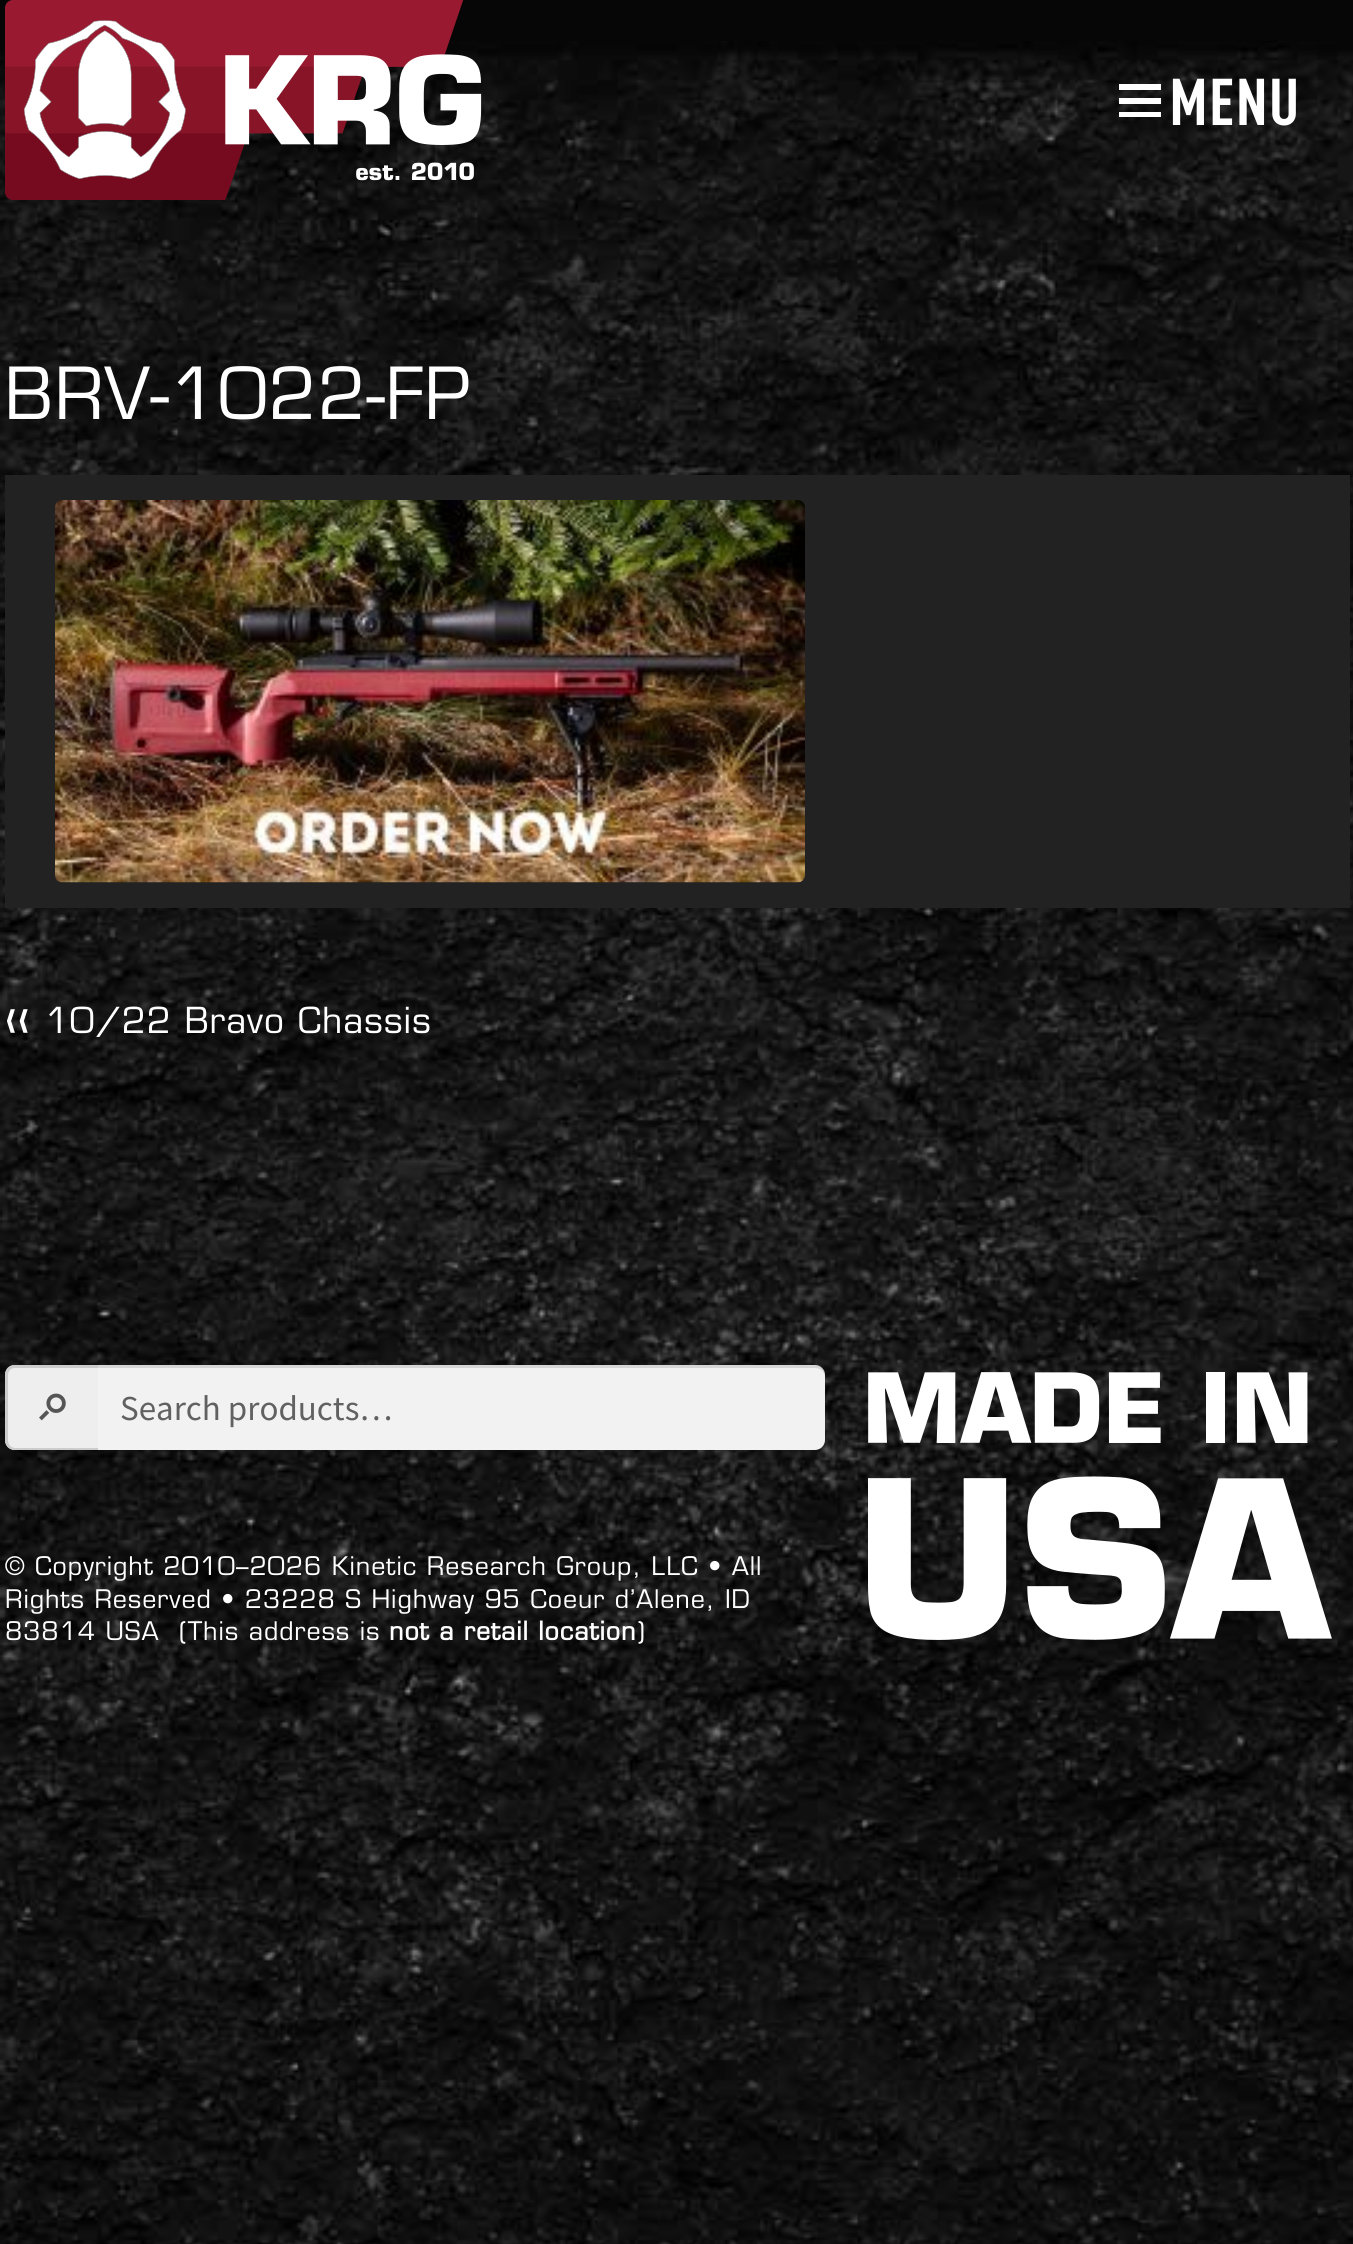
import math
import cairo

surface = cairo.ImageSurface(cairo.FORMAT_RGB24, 1353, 2244)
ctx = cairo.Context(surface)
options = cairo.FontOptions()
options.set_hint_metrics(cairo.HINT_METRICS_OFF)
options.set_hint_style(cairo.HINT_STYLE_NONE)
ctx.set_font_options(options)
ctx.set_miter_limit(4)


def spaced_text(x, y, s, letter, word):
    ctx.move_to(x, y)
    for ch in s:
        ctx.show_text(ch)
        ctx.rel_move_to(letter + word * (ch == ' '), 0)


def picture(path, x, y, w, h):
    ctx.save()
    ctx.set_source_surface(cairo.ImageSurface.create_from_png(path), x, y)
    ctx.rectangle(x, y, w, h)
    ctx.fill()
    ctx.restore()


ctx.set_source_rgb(0.027, 0.027, 0.027)
ctx.paint()
picture("img1.png", 0, 41, 1353, 2203)
picture("img2.png", 5, 0, 477, 200)
ctx.set_source_rgb(1, 1, 1)
ctx.new_path()
ctx.move_to(1119, 112)
ctx.line_to(1161, 112)
ctx.line_to(1161, 117)
ctx.line_to(1119, 117)
ctx.close_path()
ctx.move_to(1119, 98)
ctx.line_to(1161, 98)
ctx.line_to(1161, 104)
ctx.line_to(1119, 104)
ctx.close_path()
ctx.move_to(1119, 84)
ctx.line_to(1161, 84)
ctx.line_to(1161, 90)
ctx.line_to(1119, 90)
ctx.close_path()
ctx.fill()
ctx.select_font_face("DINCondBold", cairo.FONT_SLANT_NORMAL, cairo.FONT_WEIGHT_BOLD)
ctx.set_font_size(65)
spaced_text(1169, 125, "MENU", 0.92, 0)
ctx.select_font_face("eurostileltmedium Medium")
ctx.set_font_size(70)
spaced_text(5, 419, "BRV-1022-FP", 0.92, 0)
ctx.set_source_rgb(0.133, 0.133, 0.133)
ctx.rectangle(5, 475, 1345, 433)
ctx.fill()
picture("img3.png", 55, 500, 750, 383)
picture("img4.png", 7, 1009, 21, 24)
ctx.set_font_size(35)
ctx.set_source_rgb(1, 1, 1)
spaced_text(45, 1033, "10/22 Bravo Chassis", 0.92, 0)
ctx.set_source_rgb(0.933, 0.933, 0.933)
ctx.new_path()
ctx.move_to(15, 1365)
ctx.line_to(98, 1365)
ctx.line_to(98, 1450)
ctx.line_to(15, 1450)
ctx.curve_to(9.5, 1450, 5, 1445.5, 5, 1440)
ctx.line_to(5, 1375)
ctx.curve_to(5, 1369.5, 9.5, 1365, 15, 1365)
ctx.close_path()
ctx.fill()
ctx.set_source_rgb(0.8, 0.8, 0.8)
ctx.set_fill_rule(cairo.FILL_RULE_EVEN_ODD)
ctx.new_path()
ctx.move_to(15, 1365)
ctx.line_to(98, 1365)
ctx.line_to(98, 1450)
ctx.line_to(15, 1450)
ctx.curve_to(9, 1450, 5, 1446, 5, 1440)
ctx.line_to(5, 1375)
ctx.curve_to(5, 1369, 9, 1365, 15, 1365)
ctx.close_path()
ctx.move_to(15, 1368)
ctx.line_to(98, 1368)
ctx.line_to(98, 1448)
ctx.line_to(15, 1448)
ctx.curve_to(11, 1448, 8, 1444, 8, 1440)
ctx.line_to(8, 1375)
ctx.curve_to(8, 1371, 11, 1368, 15, 1368)
ctx.close_path()
ctx.fill()
picture("img5.png", 39, 1393, 27, 28)
ctx.set_source_rgb(0.949, 0.949, 0.949)
ctx.new_path()
ctx.move_to(98, 1365)
ctx.line_to(815, 1365)
ctx.curve_to(820.5, 1365, 825, 1369.5, 825, 1375)
ctx.line_to(825, 1440)
ctx.curve_to(825, 1445.5, 820.5, 1450, 815, 1450)
ctx.line_to(98, 1450)
ctx.close_path()
ctx.fill()
ctx.set_source_rgba(0, 0, 0, 0.12)
ctx.set_fill_rule(cairo.FILL_RULE_WINDING)
ctx.new_path()
ctx.move_to(98, 1368)
ctx.line_to(815, 1368)
ctx.curve_to(821, 1368, 825, 1372, 825, 1378)
ctx.curve_to(825, 1371, 823, 1365, 815, 1365)
ctx.line_to(98, 1365)
ctx.close_path()
ctx.fill()
ctx.select_font_face("Source Sans Pro")
ctx.set_source_rgb(0.38, 0.38, 0.38)
ctx.move_to(120, 1420)
ctx.show_text("Search products…")
picture("img6.png", 868, 1372, 464, 268)
ctx.select_font_face("eurostileltmedium Medium")
ctx.set_font_size(25)
ctx.set_source_rgb(1, 1, 1)
spaced_text(5, 1575, "© Copyright 2010–2026 Kinetic Research Group, LLC • All", 0.92, 0)
spaced_text(5, 1608, "Rights Reserved • 23228 S Highway 95 Coeur d’Alene, ID", 0.92, 0)
spaced_text(5, 1640, "83814 USA", 0.92, 0)
spaced_text(179, 1640, "(This address is", 0.92, 0)
ctx.select_font_face("eurostileltmedium", cairo.FONT_SLANT_NORMAL, cairo.FONT_WEIGHT_BOLD)
spaced_text(389, 1640, "not a retail location", 0.92, 0)
ctx.select_font_face("eurostileltmedium Medium")
spaced_text(637, 1640, ")", 0.92, 0)
surface.write_to_png("page.png")
